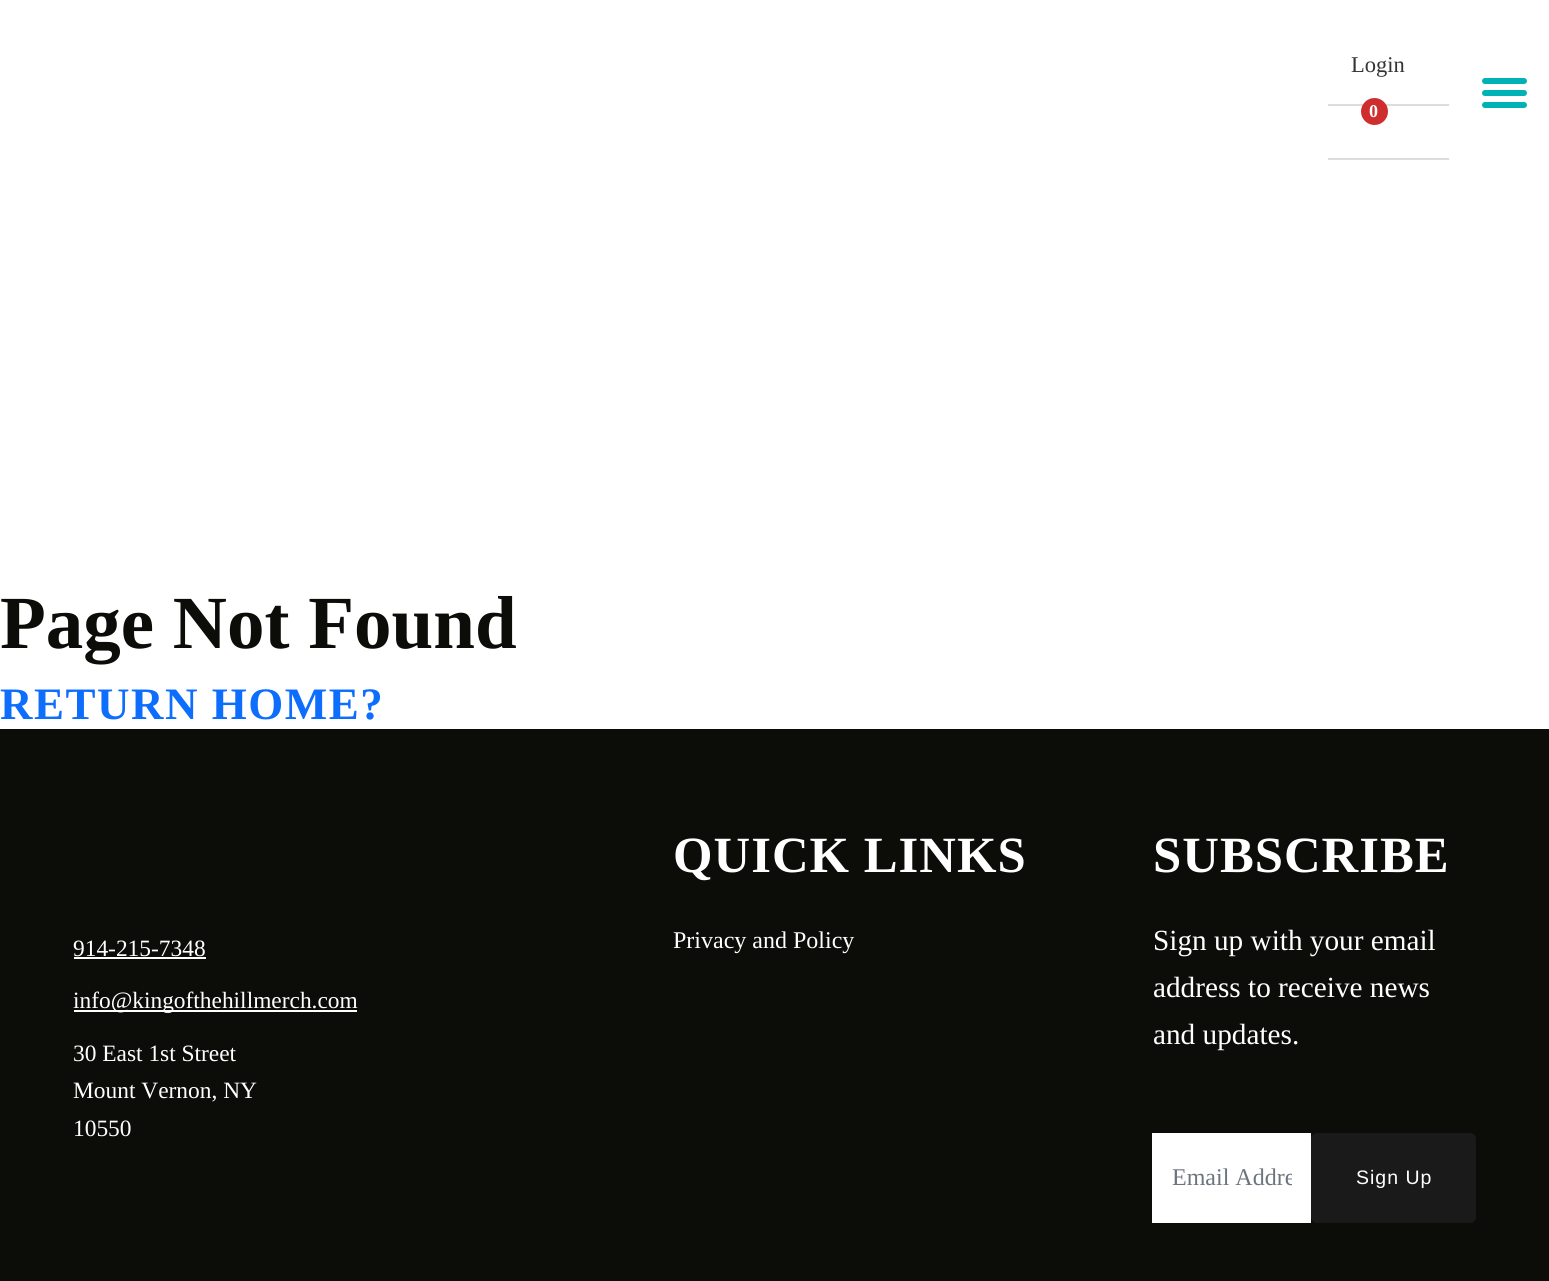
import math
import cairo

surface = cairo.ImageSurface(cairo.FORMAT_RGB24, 1549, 1281)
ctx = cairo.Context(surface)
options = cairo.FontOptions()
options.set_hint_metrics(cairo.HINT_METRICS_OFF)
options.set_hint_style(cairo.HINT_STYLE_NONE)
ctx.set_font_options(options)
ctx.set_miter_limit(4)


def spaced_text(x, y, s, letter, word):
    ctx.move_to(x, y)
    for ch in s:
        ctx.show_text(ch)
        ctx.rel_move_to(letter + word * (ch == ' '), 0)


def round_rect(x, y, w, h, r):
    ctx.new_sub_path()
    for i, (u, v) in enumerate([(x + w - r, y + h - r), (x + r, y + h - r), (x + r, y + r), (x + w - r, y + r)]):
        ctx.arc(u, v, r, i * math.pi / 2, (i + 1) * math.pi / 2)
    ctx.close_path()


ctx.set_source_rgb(1, 1, 1)
ctx.paint()
ctx.set_source_rgb(0.867, 0.867, 0.867)
ctx.rectangle(1328, 104, 121, 2)
ctx.fill()
ctx.select_font_face("Liberation Serif")
ctx.set_font_size(22.5)
ctx.set_source_rgb(0.2, 0.2, 0.2)
ctx.move_to(1351, 72)
ctx.show_text("Login")
ctx.set_source_rgb(0.867, 0.867, 0.867)
ctx.rectangle(1328, 158, 121, 2)
ctx.fill()
ctx.set_source_rgb(0.812, 0.18, 0.18)
ctx.arc(1374.5, 111.5, 13.5, 0, 2 * math.pi)
ctx.fill()
ctx.select_font_face("Liberation Serif", cairo.FONT_SLANT_NORMAL, cairo.FONT_WEIGHT_BOLD)
ctx.set_font_size(18)
ctx.set_source_rgb(1, 1, 1)
ctx.move_to(1369, 117)
ctx.show_text("0")
ctx.set_source_rgb(0, 0.694, 0.714)
round_rect(1482, 78, 45, 6, 3)
ctx.fill()
round_rect(1482, 90, 45, 6, 3)
ctx.fill()
round_rect(1482, 102, 45, 6, 3)
ctx.fill()
ctx.set_font_size(75)
ctx.set_source_rgb(0.047, 0.047, 0.039)
ctx.move_to(0, 648)
ctx.show_text("Page Not Found")
ctx.set_font_size(45)
ctx.set_source_rgb(0.051, 0.431, 0.992)
spaced_text(0, 719, "RETURN HOME?", 1.5, 0)
ctx.set_source_rgb(0.047, 0.047, 0.039)
ctx.rectangle(0, 729, 1549, 552)
ctx.fill()
ctx.select_font_face("Liberation Serif")
ctx.set_font_size(23.4)
ctx.set_source_rgb(1, 1, 1)
ctx.move_to(73, 956)
ctx.show_text("914-215-7348")
ctx.rectangle(74, 957, 132, 2)
ctx.fill()
ctx.rectangle(74, 1010, 283, 2)
ctx.fill()
ctx.move_to(73, 1008)
ctx.show_text("info@kingofthehillmerch.com")
ctx.move_to(73, 1061)
ctx.show_text("30 East 1st Street")
ctx.move_to(73, 1098)
ctx.show_text("Mount Vernon, NY")
ctx.move_to(73, 1136)
ctx.show_text("10550")
ctx.select_font_face("Liberation Serif", cairo.FONT_SLANT_NORMAL, cairo.FONT_WEIGHT_BOLD)
ctx.set_font_size(50.75)
spaced_text(673, 872, "QUICK LINKS", 1, 0)
ctx.select_font_face("Liberation Serif")
ctx.set_font_size(24)
ctx.move_to(673, 948)
ctx.show_text("Privacy and Policy")
ctx.select_font_face("Liberation Serif", cairo.FONT_SLANT_NORMAL, cairo.FONT_WEIGHT_BOLD)
ctx.set_font_size(50.75)
spaced_text(1153, 872, "SUBSCRIBE", 1, 0)
ctx.select_font_face("Liberation Serif")
ctx.set_font_size(29.25)
ctx.move_to(1153, 950)
ctx.show_text("Sign up with your email")
ctx.move_to(1153, 997)
ctx.show_text("address to receive news")
ctx.move_to(1153, 1044)
ctx.show_text("and updates.")
ctx.rectangle(1152, 1133, 159, 90)
ctx.fill()
ctx.save()
ctx.rectangle(1172, 1164, 120, 27)
ctx.clip()
ctx.set_font_size(24)
ctx.set_source_rgb(0.424, 0.459, 0.49)
ctx.move_to(1172, 1185)
ctx.show_text("Email Addre")
ctx.restore()
ctx.set_source_rgb(0.102, 0.102, 0.102)
round_rect(1311, 1133, 165, 90, 6)
ctx.fill()
ctx.select_font_face("Liberation Sans")
ctx.set_font_size(19.5)
ctx.set_source_rgb(1, 1, 1)
spaced_text(1356, 1184, "Sign Up", 1, 0)
surface.write_to_png("page.png")
